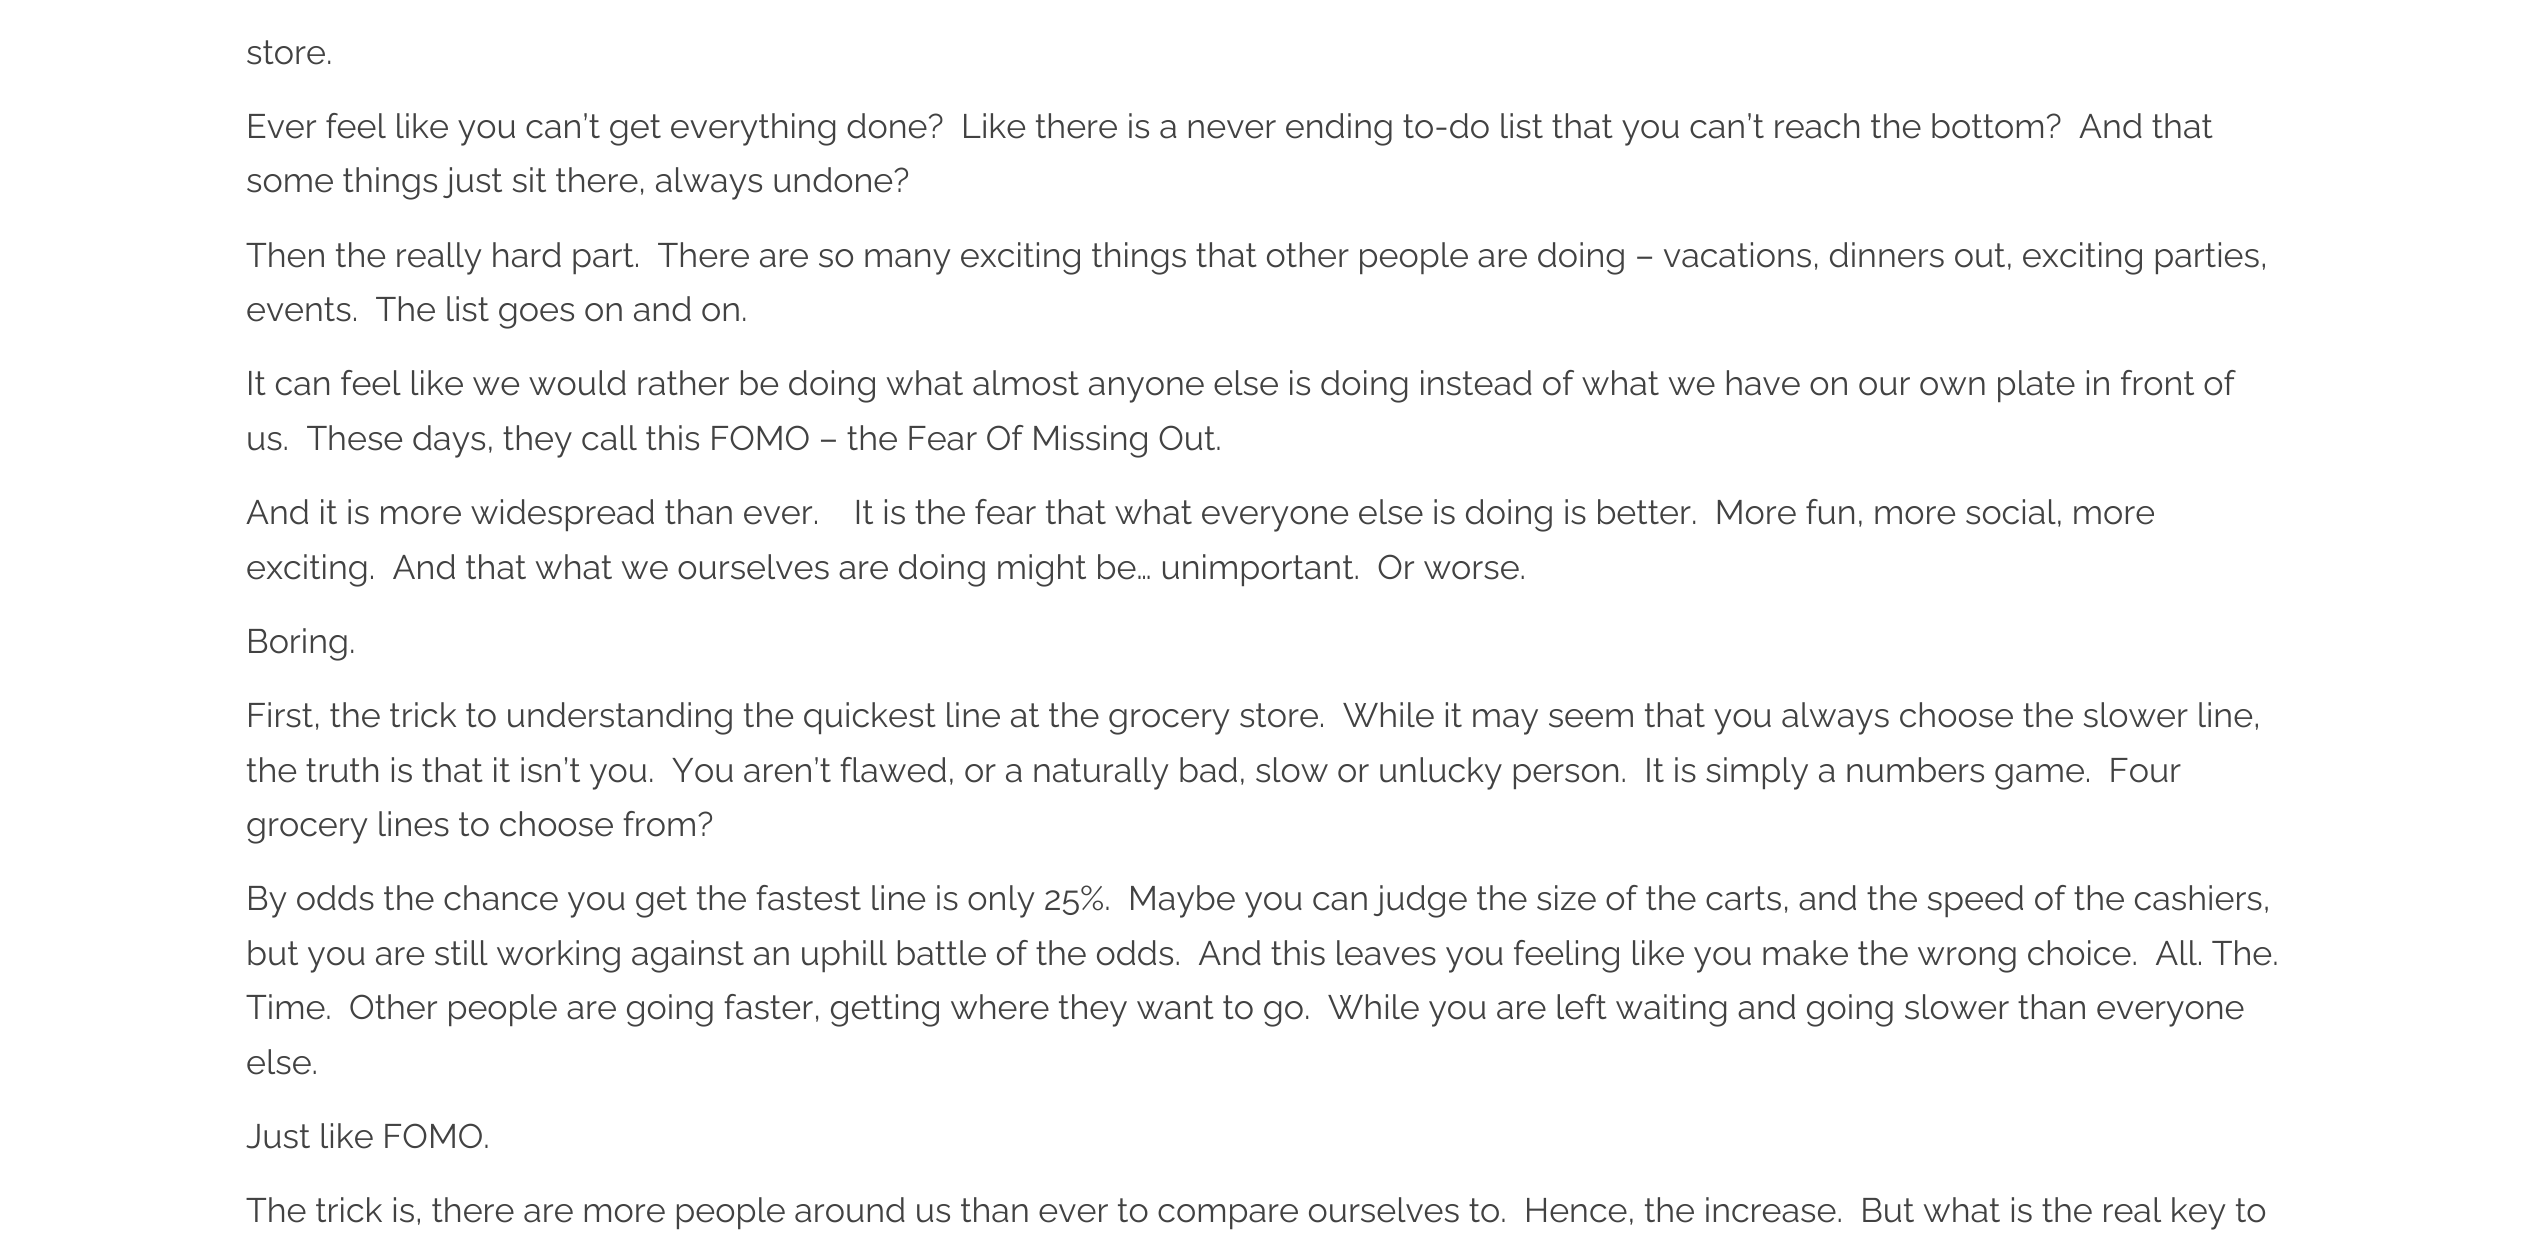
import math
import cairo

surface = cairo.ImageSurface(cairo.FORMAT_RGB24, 2531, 1260)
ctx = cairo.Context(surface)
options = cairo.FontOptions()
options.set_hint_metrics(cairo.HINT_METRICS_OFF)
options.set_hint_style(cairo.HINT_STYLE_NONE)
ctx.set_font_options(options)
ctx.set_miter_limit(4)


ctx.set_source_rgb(1, 1, 1)
ctx.paint()
ctx.select_font_face("Raleway")
ctx.set_font_size(34)
ctx.set_source_rgb(0.259, 0.259, 0.259)
ctx.move_to(246, 64)
ctx.show_text("store.")
ctx.move_to(246, 138)
ctx.show_text("Ever feel like you can’t get everything done?  Like there is a never ending to-do list that you can’t reach the bottom?  And that")
ctx.move_to(246, 192)
ctx.show_text("some things just sit there, always undone?")
ctx.move_to(246, 267)
ctx.show_text("Then the really hard part.  There are so many exciting things that other people are doing – vacations, dinners out, exciting parties,")
ctx.move_to(246, 321)
ctx.show_text("events.  The list goes on and on.")
ctx.move_to(246, 395)
ctx.show_text("It can feel like we would rather be doing what almost anyone else is doing instead of what we have on our own plate in front of")
ctx.move_to(246, 450)
ctx.show_text("us.  These days, they call this FOMO – the Fear Of Missing Out.")
ctx.move_to(246, 524)
ctx.show_text("And it is more widespread than ever.    It is the fear that what everyone else is doing is better.  More fun, more social, more")
ctx.move_to(246, 579)
ctx.show_text("exciting.  And that what we ourselves are doing might be… unimportant.  Or worse.")
ctx.move_to(246, 653)
ctx.show_text("Boring.")
ctx.move_to(246, 727)
ctx.show_text("First, the trick to understanding the quickest line at the grocery store.  While it may seem that you always choose the slower line,")
ctx.move_to(246, 782)
ctx.show_text("the truth is that it isn’t you.  You aren’t flawed, or a naturally bad, slow or unlucky person.  It is simply a numbers game.  Four")
ctx.move_to(246, 836)
ctx.show_text("grocery lines to choose from?")
ctx.move_to(246, 910)
ctx.show_text("By odds the chance you get the fastest line is only 25%.  Maybe you can judge the size of the carts, and the speed of the cashiers,")
ctx.move_to(246, 965)
ctx.show_text("but you are still working against an uphill battle of the odds.  And this leaves you feeling like you make the wrong choice.  All. The.")
ctx.move_to(246, 1019)
ctx.show_text("Time.  Other people are going faster, getting where they want to go.  While you are left waiting and going slower than everyone")
ctx.move_to(246, 1074)
ctx.show_text("else.")
ctx.move_to(246, 1148)
ctx.show_text("Just like FOMO.")
ctx.move_to(246, 1222)
ctx.show_text("The trick is, there are more people around us than ever to compare ourselves to.  Hence, the increase.  But what is the real key to")
surface.write_to_png("page.png")
